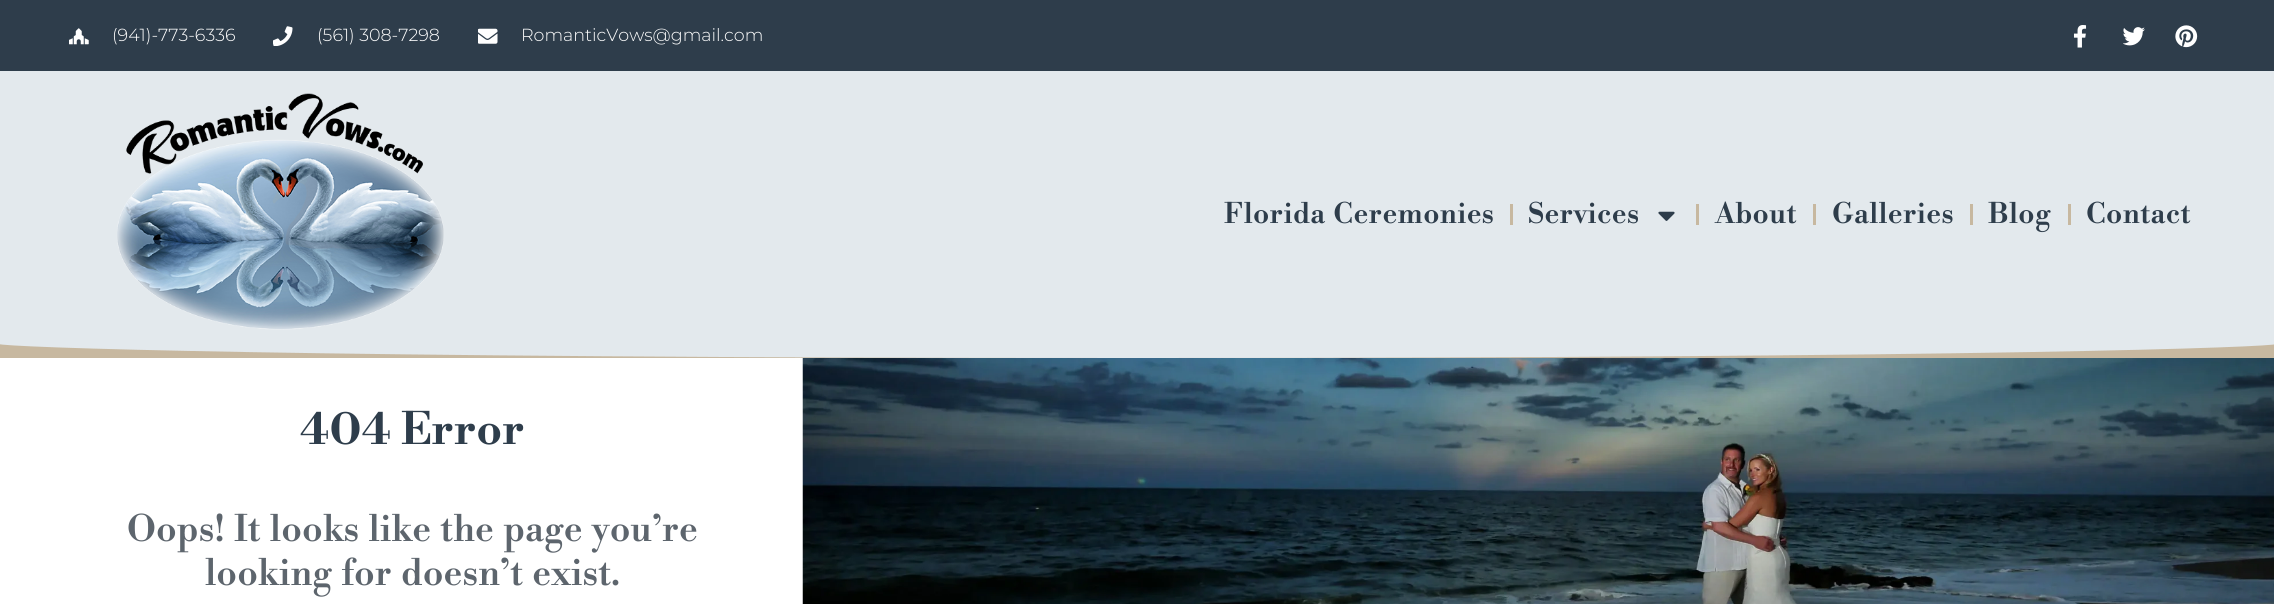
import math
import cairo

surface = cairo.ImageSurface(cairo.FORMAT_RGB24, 2274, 604)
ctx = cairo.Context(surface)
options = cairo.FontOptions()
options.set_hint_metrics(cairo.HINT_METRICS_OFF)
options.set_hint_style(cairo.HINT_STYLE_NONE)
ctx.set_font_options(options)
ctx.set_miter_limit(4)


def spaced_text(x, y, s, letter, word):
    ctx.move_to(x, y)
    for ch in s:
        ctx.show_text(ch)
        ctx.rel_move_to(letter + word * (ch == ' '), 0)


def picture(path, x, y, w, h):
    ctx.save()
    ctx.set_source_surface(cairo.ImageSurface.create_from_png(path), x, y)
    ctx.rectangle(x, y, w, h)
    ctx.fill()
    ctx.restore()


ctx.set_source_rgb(1, 1, 1)
ctx.paint()
ctx.set_source_rgb(0.18, 0.239, 0.294)
ctx.rectangle(0, 0, 2274, 71)
ctx.fill()
picture("img1.png", 69, 28, 20, 17)
ctx.select_font_face("Montserrat Light")
ctx.set_font_size(17.5)
ctx.set_source_rgb(1, 1, 1)
ctx.move_to(112, 41)
ctx.show_text("(941)-773-6336")
picture("img2.png", 273, 26, 20, 20)
ctx.move_to(317, 41)
ctx.show_text("(561) 308-7298")
picture("img3.png", 478, 28, 20, 16)
ctx.move_to(521, 41)
ctx.show_text("RomanticVows@gmail.com")
picture("img4.png", 2073, 25, 14, 23)
picture("img5.png", 2123, 27, 22, 19)
picture("img6.png", 2175, 25, 23, 23)
ctx.set_source_rgb(0.89, 0.914, 0.929)
ctx.rectangle(0, 71, 2274, 287)
ctx.fill()
picture("img7.png", 117, 93, 327, 237)
ctx.select_font_face("Libre Bodoni SemiBold")
ctx.set_font_size(28)
ctx.set_source_rgb(0.18, 0.239, 0.294)
spaced_text(1224, 223, "Florida Ceremonies", 0.4, 2.5)
ctx.set_source_rgb(0.78, 0.722, 0.627)
ctx.rectangle(1510, 204, 3, 21)
ctx.fill()
ctx.set_source_rgb(0.18, 0.239, 0.294)
spaced_text(1528, 223, "Services", 0.4, 0)
picture("img8.png", 1658, 211, 17, 10)
ctx.set_source_rgb(0.78, 0.722, 0.627)
ctx.rectangle(1696, 204, 3, 21)
ctx.fill()
ctx.set_source_rgb(0.18, 0.239, 0.294)
spaced_text(1715, 223, "About", 0.4, 0)
ctx.set_source_rgb(0.78, 0.722, 0.627)
ctx.rectangle(1813, 204, 3, 21)
ctx.fill()
ctx.set_source_rgb(0.18, 0.239, 0.294)
spaced_text(1832, 223, "Galleries", 0.4, 0)
ctx.set_source_rgb(0.78, 0.722, 0.627)
ctx.rectangle(1970, 204, 3, 21)
ctx.fill()
ctx.set_source_rgb(0.18, 0.239, 0.294)
spaced_text(1988, 223, "Blog", 0.4, 0)
ctx.set_source_rgb(0.78, 0.722, 0.627)
ctx.rectangle(2068, 204, 3, 21)
ctx.fill()
ctx.set_source_rgb(0.18, 0.239, 0.294)
spaced_text(2086, 223, "Contact", 0.4, 0)
ctx.save()
ctx.rectangle(0, 344, 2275, 14)
ctx.clip()
ctx.set_source_rgb(0.78, 0.722, 0.627)
ctx.new_path()
ctx.move_to(1138, 358)
ctx.curve_to(288, 358, 1, 347, -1, 344)
ctx.line_to(-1, 359)
ctx.line_to(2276, 359)
ctx.line_to(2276, 344)
ctx.curve_to(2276, 347, 1987, 358, 1138, 358)
ctx.close_path()
ctx.fill()
ctx.restore()
ctx.select_font_face("Libre Bodoni", cairo.FONT_SLANT_NORMAL, cairo.FONT_WEIGHT_BOLD)
ctx.set_font_size(44)
spaced_text(300, 444, "404 Error", 0.1, 2.5)
ctx.select_font_face("Libre Bodoni Medium")
ctx.set_font_size(36)
ctx.set_source_rgb(0.365, 0.396, 0.427)
spaced_text(127, 541, "Oops! It looks like the page you’re", 0.1, 2.5)
spaced_text(205, 585, "looking for doesn’t exist.", 0.1, 2.5)
picture("img9.png", 802, 358, 1472, 246)
surface.write_to_png("page.png")
